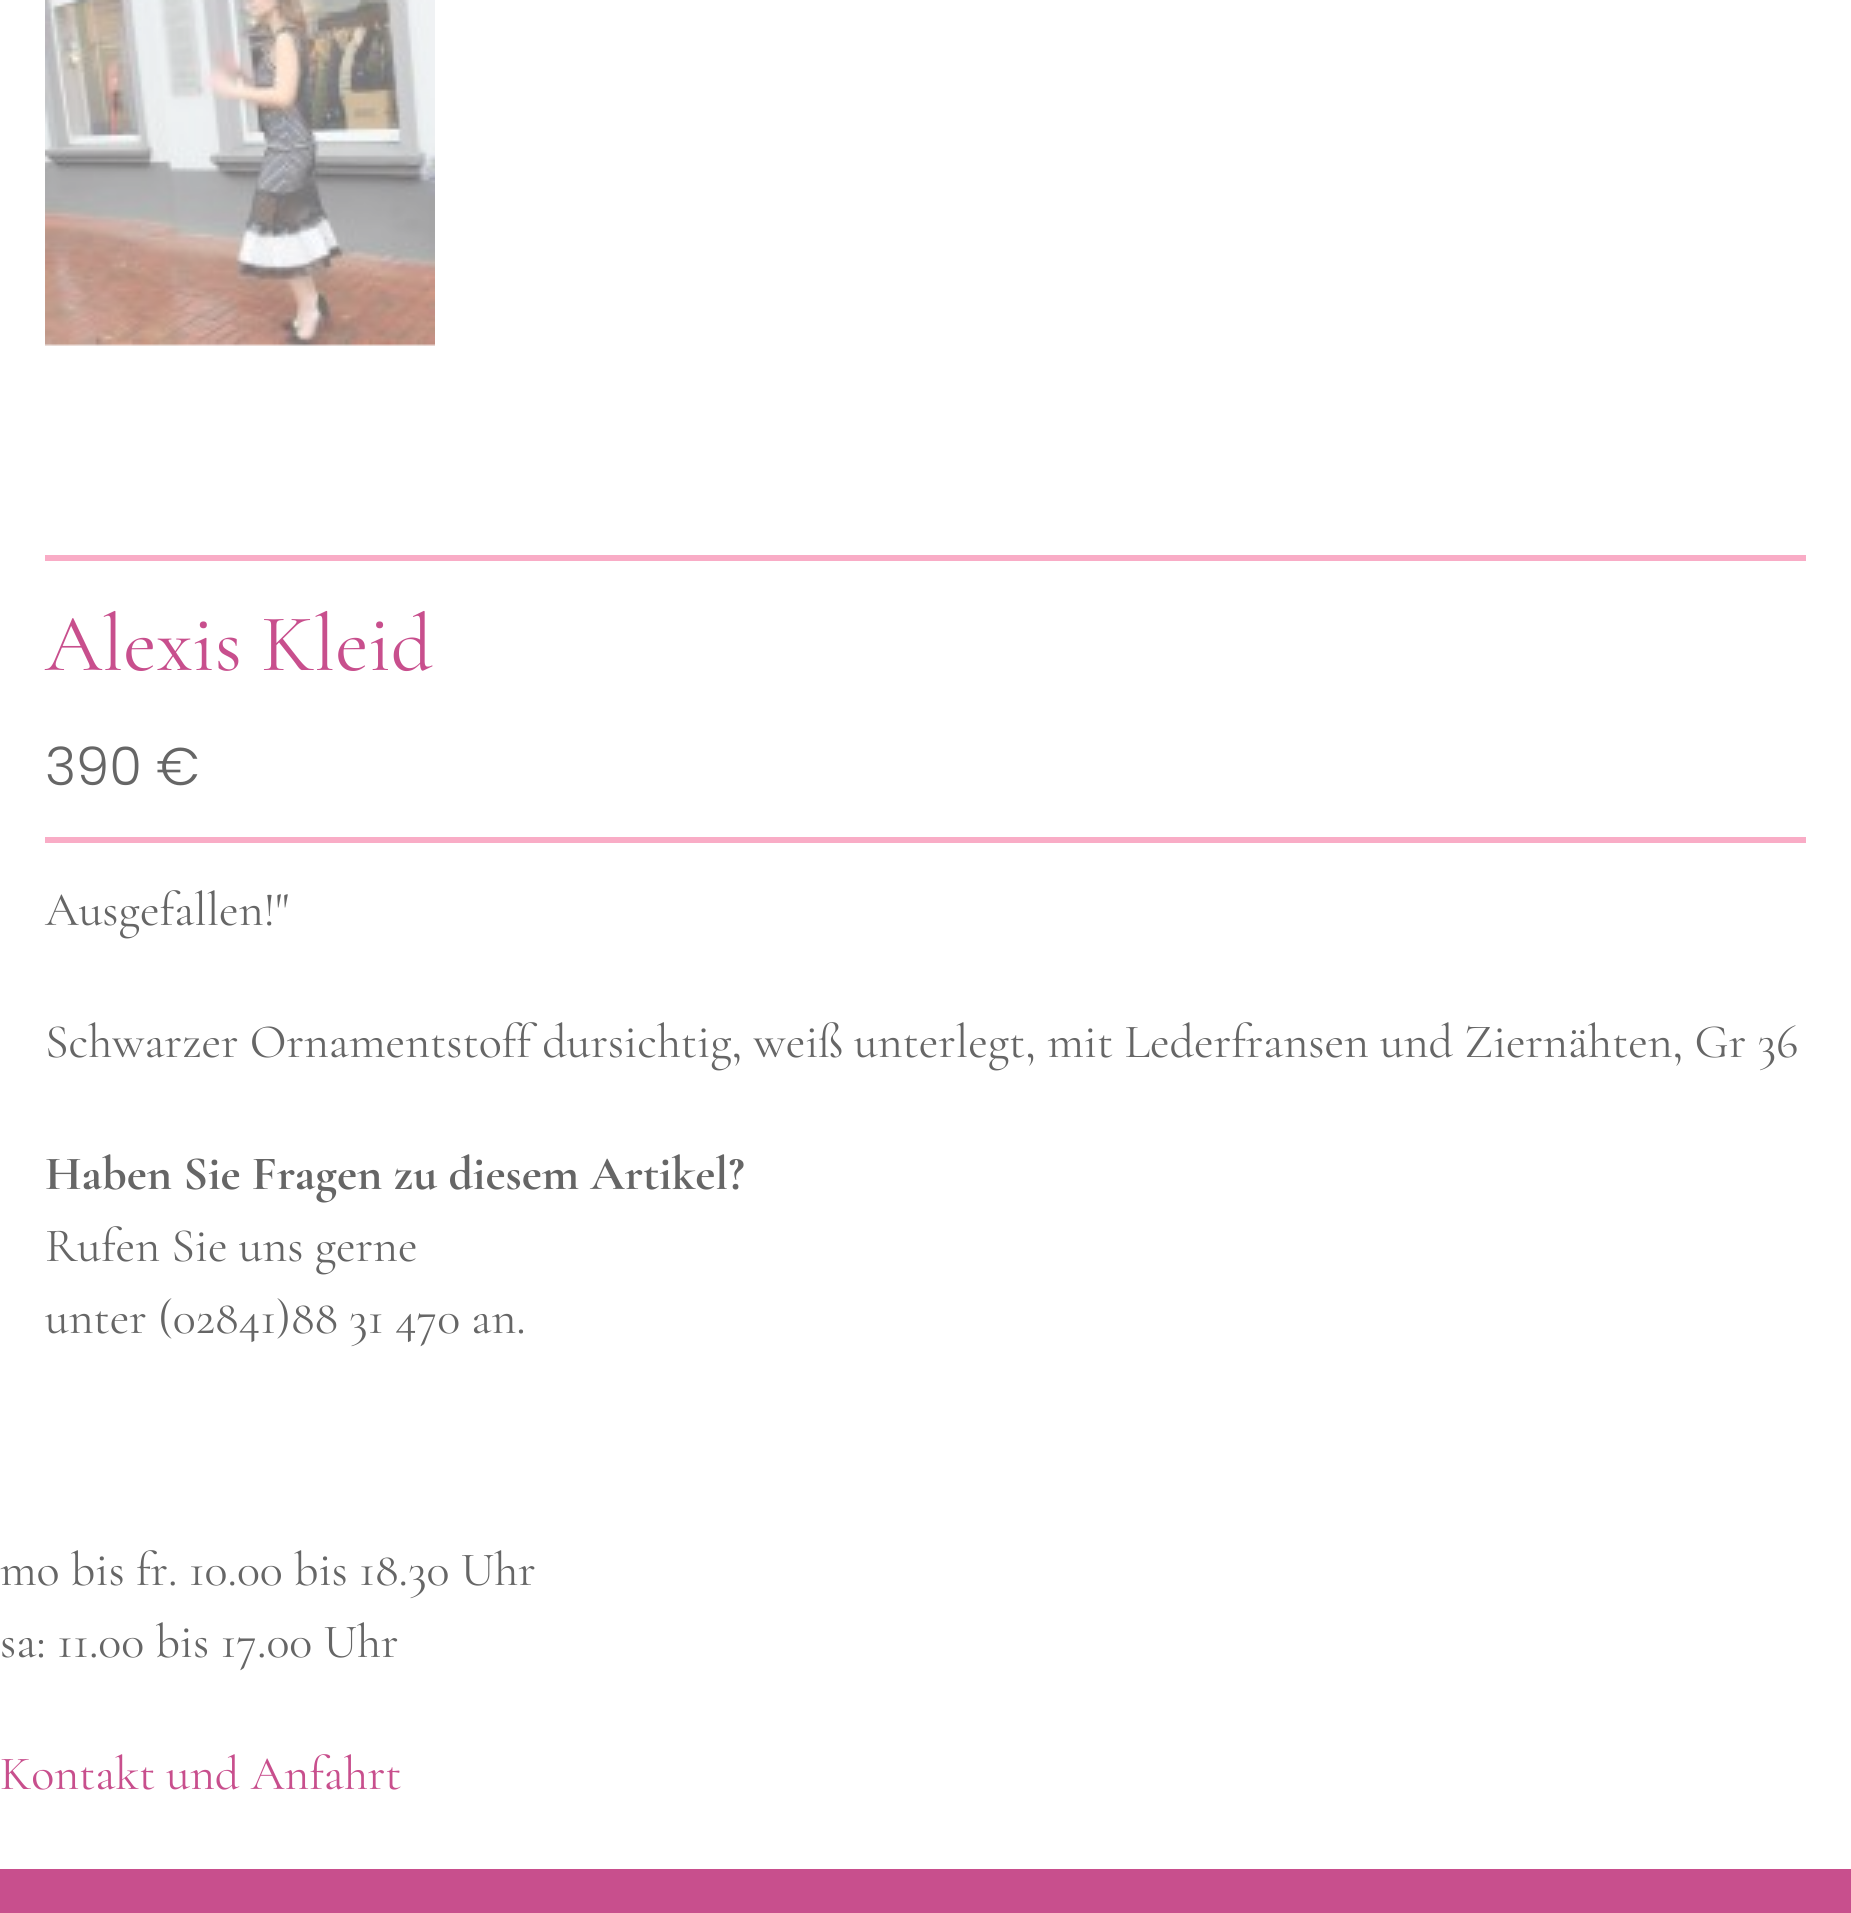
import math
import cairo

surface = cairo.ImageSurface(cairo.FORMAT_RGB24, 1851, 1913)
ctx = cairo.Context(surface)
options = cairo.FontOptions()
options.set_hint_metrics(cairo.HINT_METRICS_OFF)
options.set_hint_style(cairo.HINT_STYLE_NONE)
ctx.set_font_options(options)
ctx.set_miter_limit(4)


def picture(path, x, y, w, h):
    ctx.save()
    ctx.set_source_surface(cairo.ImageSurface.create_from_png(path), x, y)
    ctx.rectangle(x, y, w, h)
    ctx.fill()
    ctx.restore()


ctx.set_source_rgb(1, 1, 1)
ctx.paint()
picture("img1.png", 45, 0, 390, 346)
ctx.set_source_rgb(0.973, 0.675, 0.776)
ctx.rectangle(45, 555, 1761, 6)
ctx.fill()
ctx.select_font_face("Cormorant Garamond")
ctx.set_font_size(81.5)
ctx.set_source_rgb(0.784, 0.31, 0.553)
ctx.move_to(45, 670)
ctx.show_text("Alexis Kleid")
ctx.select_font_face("Poppins Light")
ctx.set_font_size(53)
ctx.set_source_rgb(0.4, 0.4, 0.4)
ctx.move_to(45, 785)
ctx.show_text("390 €")
ctx.set_source_rgb(0.973, 0.675, 0.776)
ctx.rectangle(45, 837, 1761, 6)
ctx.fill()
ctx.select_font_face("Cormorant Garamond")
ctx.set_font_size(48)
ctx.set_source_rgb(0.4, 0.4, 0.4)
ctx.move_to(45, 925)
ctx.show_text("Ausgefallen!\"")
ctx.move_to(45, 1057)
ctx.show_text("Schwarzer Ornamentstoff dursichtig, weiß unterlegt, mit Lederfransen und Ziernähten, Gr 36")
ctx.select_font_face("Cormorant Garamond", cairo.FONT_SLANT_NORMAL, cairo.FONT_WEIGHT_BOLD)
ctx.move_to(45, 1189)
ctx.show_text("Haben Sie Fragen zu diesem Artikel?")
ctx.select_font_face("Cormorant Garamond")
ctx.move_to(45, 1261)
ctx.show_text("Rufen Sie uns gerne")
ctx.move_to(45, 1333)
ctx.show_text("unter (02841)88 31 470 an.")
ctx.set_source_rgb(0.784, 0.31, 0.553)
ctx.rectangle(0, 1869, 1851, 44)
ctx.fill()
ctx.set_source_rgb(0.4, 0.4, 0.4)
ctx.move_to(0, 1585)
ctx.show_text("mo bis fr. 10.00 bis 18.30 Uhr")
ctx.move_to(0, 1657)
ctx.show_text("sa: 11.00 bis 17.00 Uhr")
ctx.set_source_rgb(0.784, 0.31, 0.553)
ctx.move_to(0, 1789)
ctx.show_text("Kontakt und Anfahrt")
surface.write_to_png("page.png")
